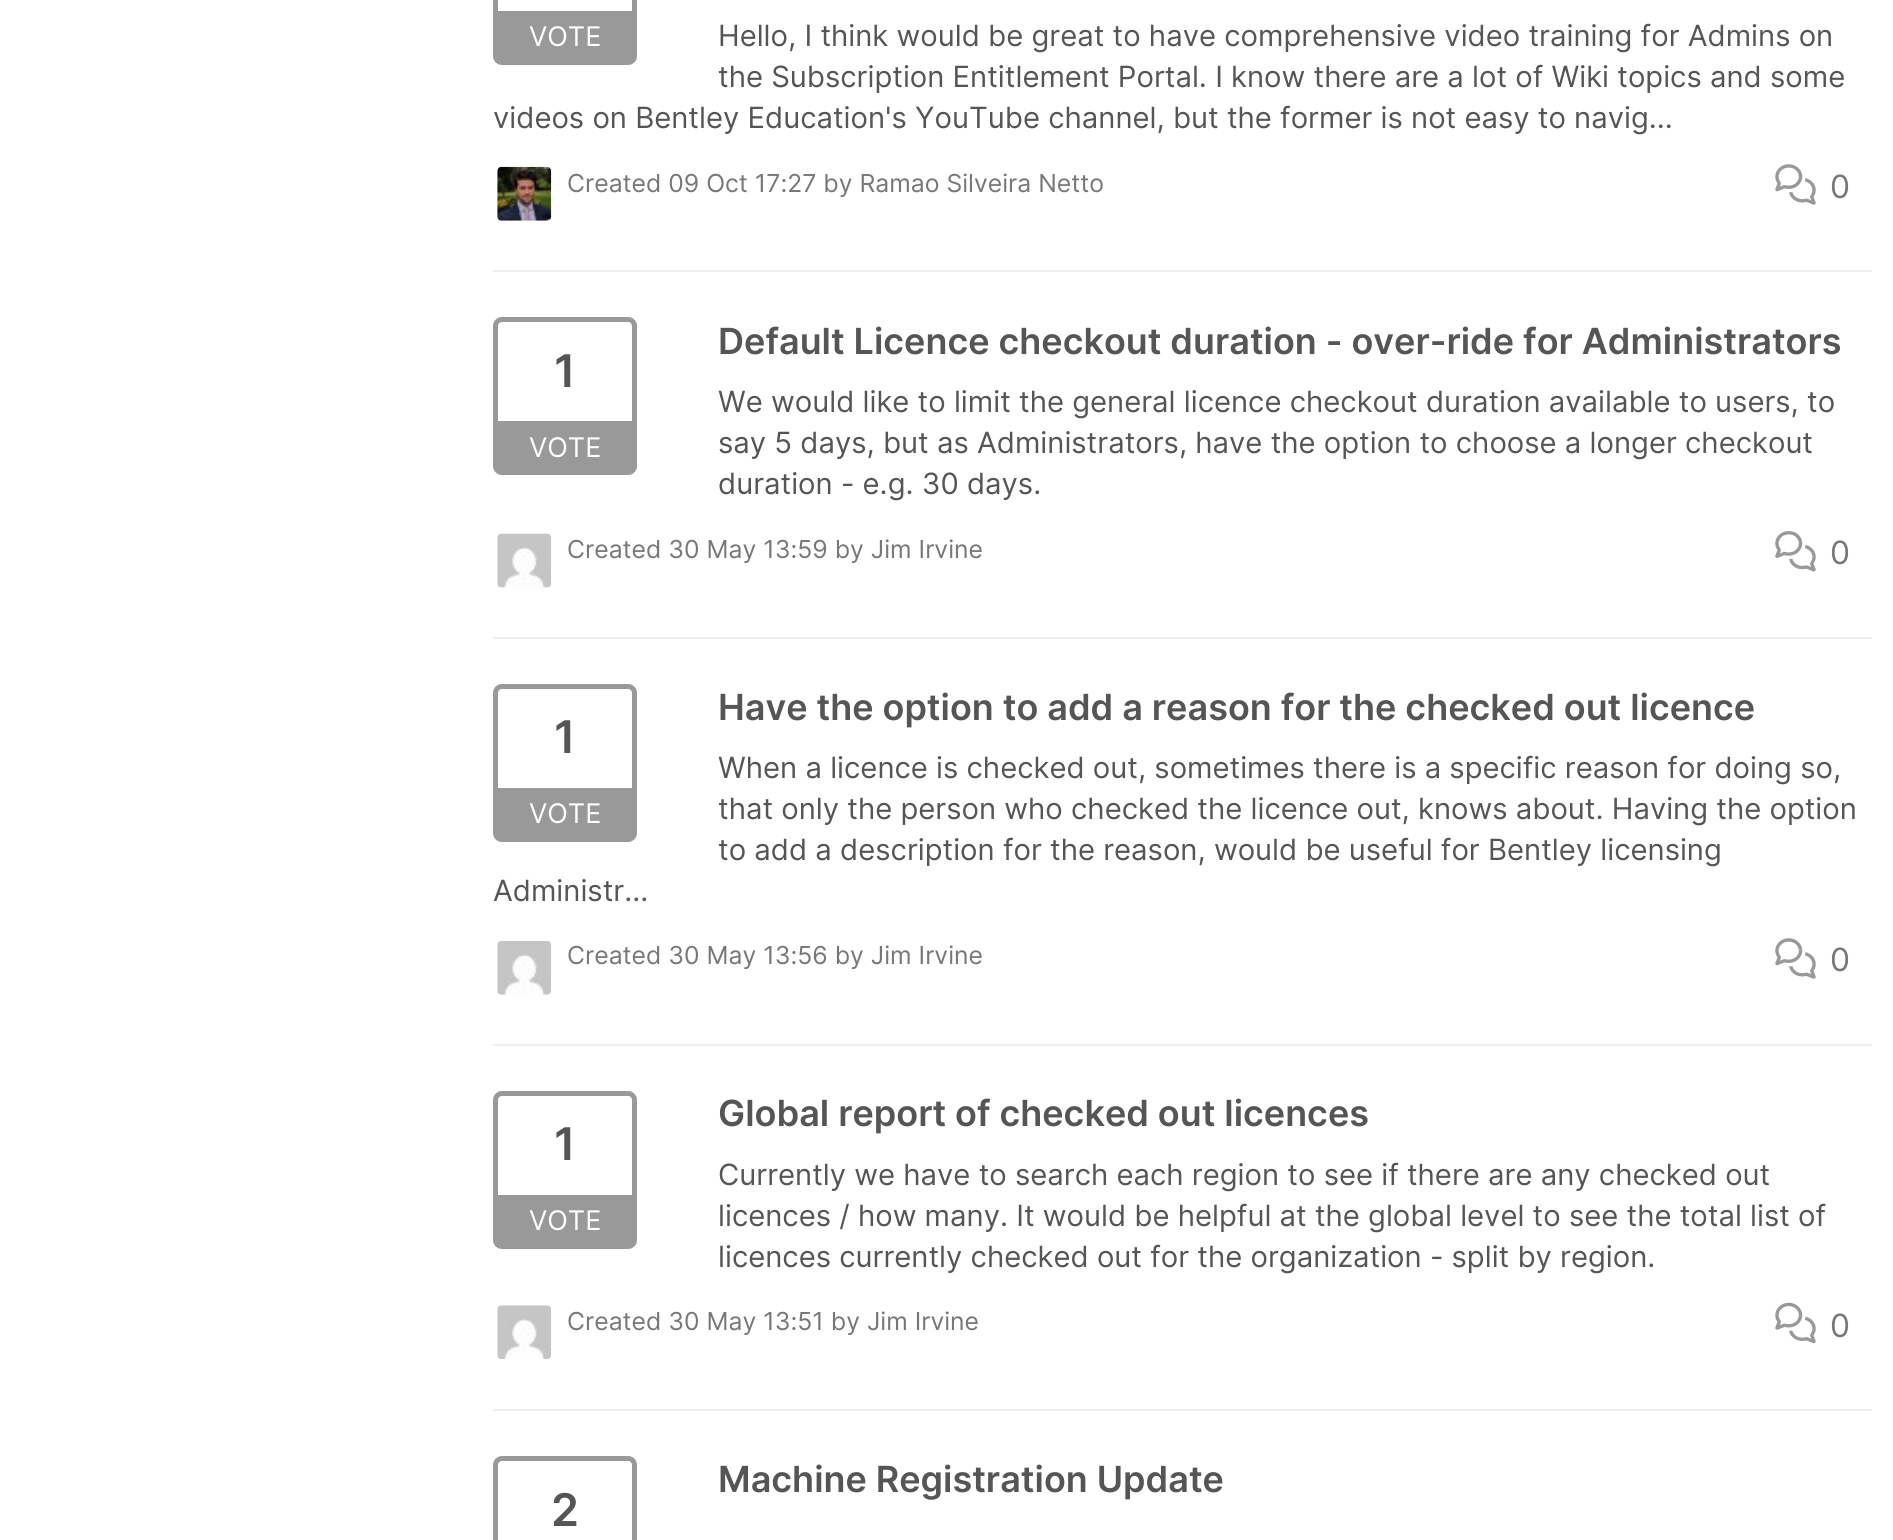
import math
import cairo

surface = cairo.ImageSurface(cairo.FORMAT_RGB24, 1893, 1540)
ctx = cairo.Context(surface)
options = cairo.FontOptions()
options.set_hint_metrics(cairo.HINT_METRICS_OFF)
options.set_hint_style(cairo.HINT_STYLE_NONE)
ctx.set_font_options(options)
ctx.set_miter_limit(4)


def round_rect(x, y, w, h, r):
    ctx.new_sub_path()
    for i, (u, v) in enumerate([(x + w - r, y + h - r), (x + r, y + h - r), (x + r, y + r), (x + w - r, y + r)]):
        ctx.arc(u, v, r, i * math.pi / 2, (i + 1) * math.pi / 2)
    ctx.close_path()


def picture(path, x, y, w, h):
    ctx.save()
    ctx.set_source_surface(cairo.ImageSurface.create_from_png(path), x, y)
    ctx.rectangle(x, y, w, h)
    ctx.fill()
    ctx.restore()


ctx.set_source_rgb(1, 1, 1)
ctx.paint()
ctx.set_source_rgb(0.933, 0.933, 0.933)
ctx.rectangle(493, 270, 1379, 2)
ctx.fill()
ctx.select_font_face("Inter")
ctx.set_font_size(29.25)
ctx.set_source_rgb(0.333, 0.333, 0.333)
ctx.move_to(718, 46)
ctx.show_text("Hello, I think would be great to have comprehensive video training for Admins on")
ctx.move_to(718, 87)
ctx.show_text("the Subscription Entitlement Portal. I know there are a lot of Wiki topics and some")
ctx.move_to(493, 128)
ctx.show_text("videos on Bentley Education's YouTube channel, but the former is not easy to navig...")
picture("img1.png", 497, 166, 55, 55)
ctx.set_font_size(24.75)
ctx.set_source_rgb(0.467, 0.467, 0.467)
ctx.move_to(567, 192)
ctx.show_text("Created 09 Oct 17:27 by Ramao Silveira Netto")
picture("img2.png", 1775, 164, 41, 41)
ctx.set_font_size(32)
ctx.move_to(1830, 198)
ctx.show_text("0")
round_rect(495.5, -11.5, 139, 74, 6.5)
ctx.set_source_rgb(0.6, 0.6, 0.6)
ctx.set_line_width(5)
ctx.stroke()
ctx.rectangle(498, 11, 134, 49)
ctx.fill()
ctx.set_font_size(27)
ctx.set_source_rgb(1, 1, 1)
ctx.move_to(529, 46)
ctx.show_text("VOTE")
ctx.set_source_rgb(0.933, 0.933, 0.933)
ctx.rectangle(493, 637, 1379, 2)
ctx.fill()
round_rect(495.5, 319.5, 139, 153, 6.5)
ctx.set_source_rgb(0.6, 0.6, 0.6)
ctx.stroke()
ctx.select_font_face("Inter SemiBold")
ctx.set_font_size(45)
ctx.set_source_rgb(0.333, 0.333, 0.333)
ctx.move_to(554, 387)
ctx.show_text("1")
ctx.set_source_rgb(0.6, 0.6, 0.6)
ctx.rectangle(498, 421, 134, 49)
ctx.fill()
ctx.select_font_face("Inter")
ctx.set_font_size(27)
ctx.set_source_rgb(1, 1, 1)
ctx.move_to(529, 457)
ctx.show_text("VOTE")
ctx.select_font_face("Inter SemiBold")
ctx.set_font_size(36)
ctx.set_source_rgb(0.333, 0.333, 0.333)
ctx.move_to(718, 354)
ctx.show_text("Default Licence checkout duration - over-ride for Administrators")
ctx.select_font_face("Inter")
ctx.set_font_size(29.25)
ctx.move_to(718, 412)
ctx.show_text("We would like to limit the general licence checkout duration available to users, to")
ctx.move_to(718, 453)
ctx.show_text("say 5 days, but as Administrators, have the option to choose a longer checkout")
ctx.move_to(718, 494)
ctx.show_text("duration - e.g. 30 days.")
picture("img3.png", 497, 533, 55, 55)
ctx.set_font_size(24.75)
ctx.set_source_rgb(0.467, 0.467, 0.467)
ctx.move_to(567, 558)
ctx.show_text("Created 30 May 13:59 by Jim Irvine")
picture("img4.png", 1775, 531, 41, 41)
ctx.set_font_size(32)
ctx.move_to(1830, 564)
ctx.show_text("0")
ctx.set_source_rgb(0.933, 0.933, 0.933)
ctx.rectangle(493, 1044, 1379, 2)
ctx.fill()
ctx.select_font_face("Inter SemiBold")
ctx.set_font_size(36)
ctx.set_source_rgb(0.333, 0.333, 0.333)
ctx.move_to(718, 720)
ctx.show_text("Have the option to add a reason for the checked out licence")
ctx.select_font_face("Inter")
ctx.set_font_size(29.25)
ctx.move_to(718, 778)
ctx.show_text("When a licence is checked out, sometimes there is a specific reason for doing so,")
ctx.move_to(718, 819)
ctx.show_text("that only the person who checked the licence out, knows about. Having the option")
ctx.move_to(718, 860)
ctx.show_text("to add a description for the reason, would be useful for Bentley licensing")
ctx.move_to(493, 901)
ctx.show_text("Administr...")
picture("img5.png", 497, 941, 55, 54)
ctx.set_font_size(24.75)
ctx.set_source_rgb(0.467, 0.467, 0.467)
ctx.move_to(567, 964)
ctx.show_text("Created 30 May 13:56 by Jim Irvine")
picture("img2.png", 1775, 938, 41, 41)
ctx.set_font_size(32)
ctx.move_to(1830, 971)
ctx.show_text("0")
round_rect(495.5, 686.5, 139, 153, 6.5)
ctx.set_source_rgb(0.6, 0.6, 0.6)
ctx.stroke()
ctx.select_font_face("Inter SemiBold")
ctx.set_font_size(45)
ctx.set_source_rgb(0.333, 0.333, 0.333)
ctx.move_to(554, 753)
ctx.show_text("1")
ctx.set_source_rgb(0.6, 0.6, 0.6)
ctx.rectangle(498, 788, 134, 49)
ctx.fill()
ctx.select_font_face("Inter")
ctx.set_font_size(27)
ctx.set_source_rgb(1, 1, 1)
ctx.move_to(529, 823)
ctx.show_text("VOTE")
ctx.set_source_rgb(0.933, 0.933, 0.933)
ctx.rectangle(493, 1409, 1379, 2)
ctx.fill()
round_rect(495.5, 1093.5, 139, 153, 6.5)
ctx.set_source_rgb(0.6, 0.6, 0.6)
ctx.stroke()
ctx.select_font_face("Inter SemiBold")
ctx.set_font_size(45)
ctx.set_source_rgb(0.333, 0.333, 0.333)
ctx.move_to(554, 1160)
ctx.show_text("1")
ctx.set_source_rgb(0.6, 0.6, 0.6)
ctx.rectangle(498, 1195, 134, 49)
ctx.fill()
ctx.select_font_face("Inter")
ctx.set_font_size(27)
ctx.set_source_rgb(1, 1, 1)
ctx.move_to(529, 1230)
ctx.show_text("VOTE")
ctx.select_font_face("Inter SemiBold")
ctx.set_font_size(36)
ctx.set_source_rgb(0.333, 0.333, 0.333)
ctx.move_to(718, 1126)
ctx.show_text("Global report of checked out licences")
ctx.select_font_face("Inter")
ctx.set_font_size(29.25)
ctx.move_to(718, 1185)
ctx.show_text("Currently we have to search each region to see if there are any checked out")
ctx.move_to(718, 1226)
ctx.show_text("licences / how many. It would be helpful at the global level to see the total list of")
ctx.move_to(718, 1267)
ctx.show_text("licences currently checked out for the organization - split by region.")
picture("img6.png", 497, 1305, 55, 55)
ctx.set_font_size(24.75)
ctx.set_source_rgb(0.467, 0.467, 0.467)
ctx.move_to(567, 1330)
ctx.show_text("Created 30 May 13:51 by Jim Irvine")
picture("img7.png", 1775, 1302, 41, 42)
ctx.set_font_size(32)
ctx.move_to(1830, 1337)
ctx.show_text("0")
ctx.select_font_face("Inter SemiBold")
ctx.set_font_size(36)
ctx.set_source_rgb(0.333, 0.333, 0.333)
ctx.move_to(718, 1492)
ctx.show_text("Machine Registration Update")
round_rect(495.5, 1458.5, 139, 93, 6.5)
ctx.set_source_rgb(0.6, 0.6, 0.6)
ctx.stroke()
ctx.set_font_size(45)
ctx.set_source_rgb(0.333, 0.333, 0.333)
ctx.move_to(551, 1526)
ctx.show_text("2")
surface.write_to_png("page.png")
